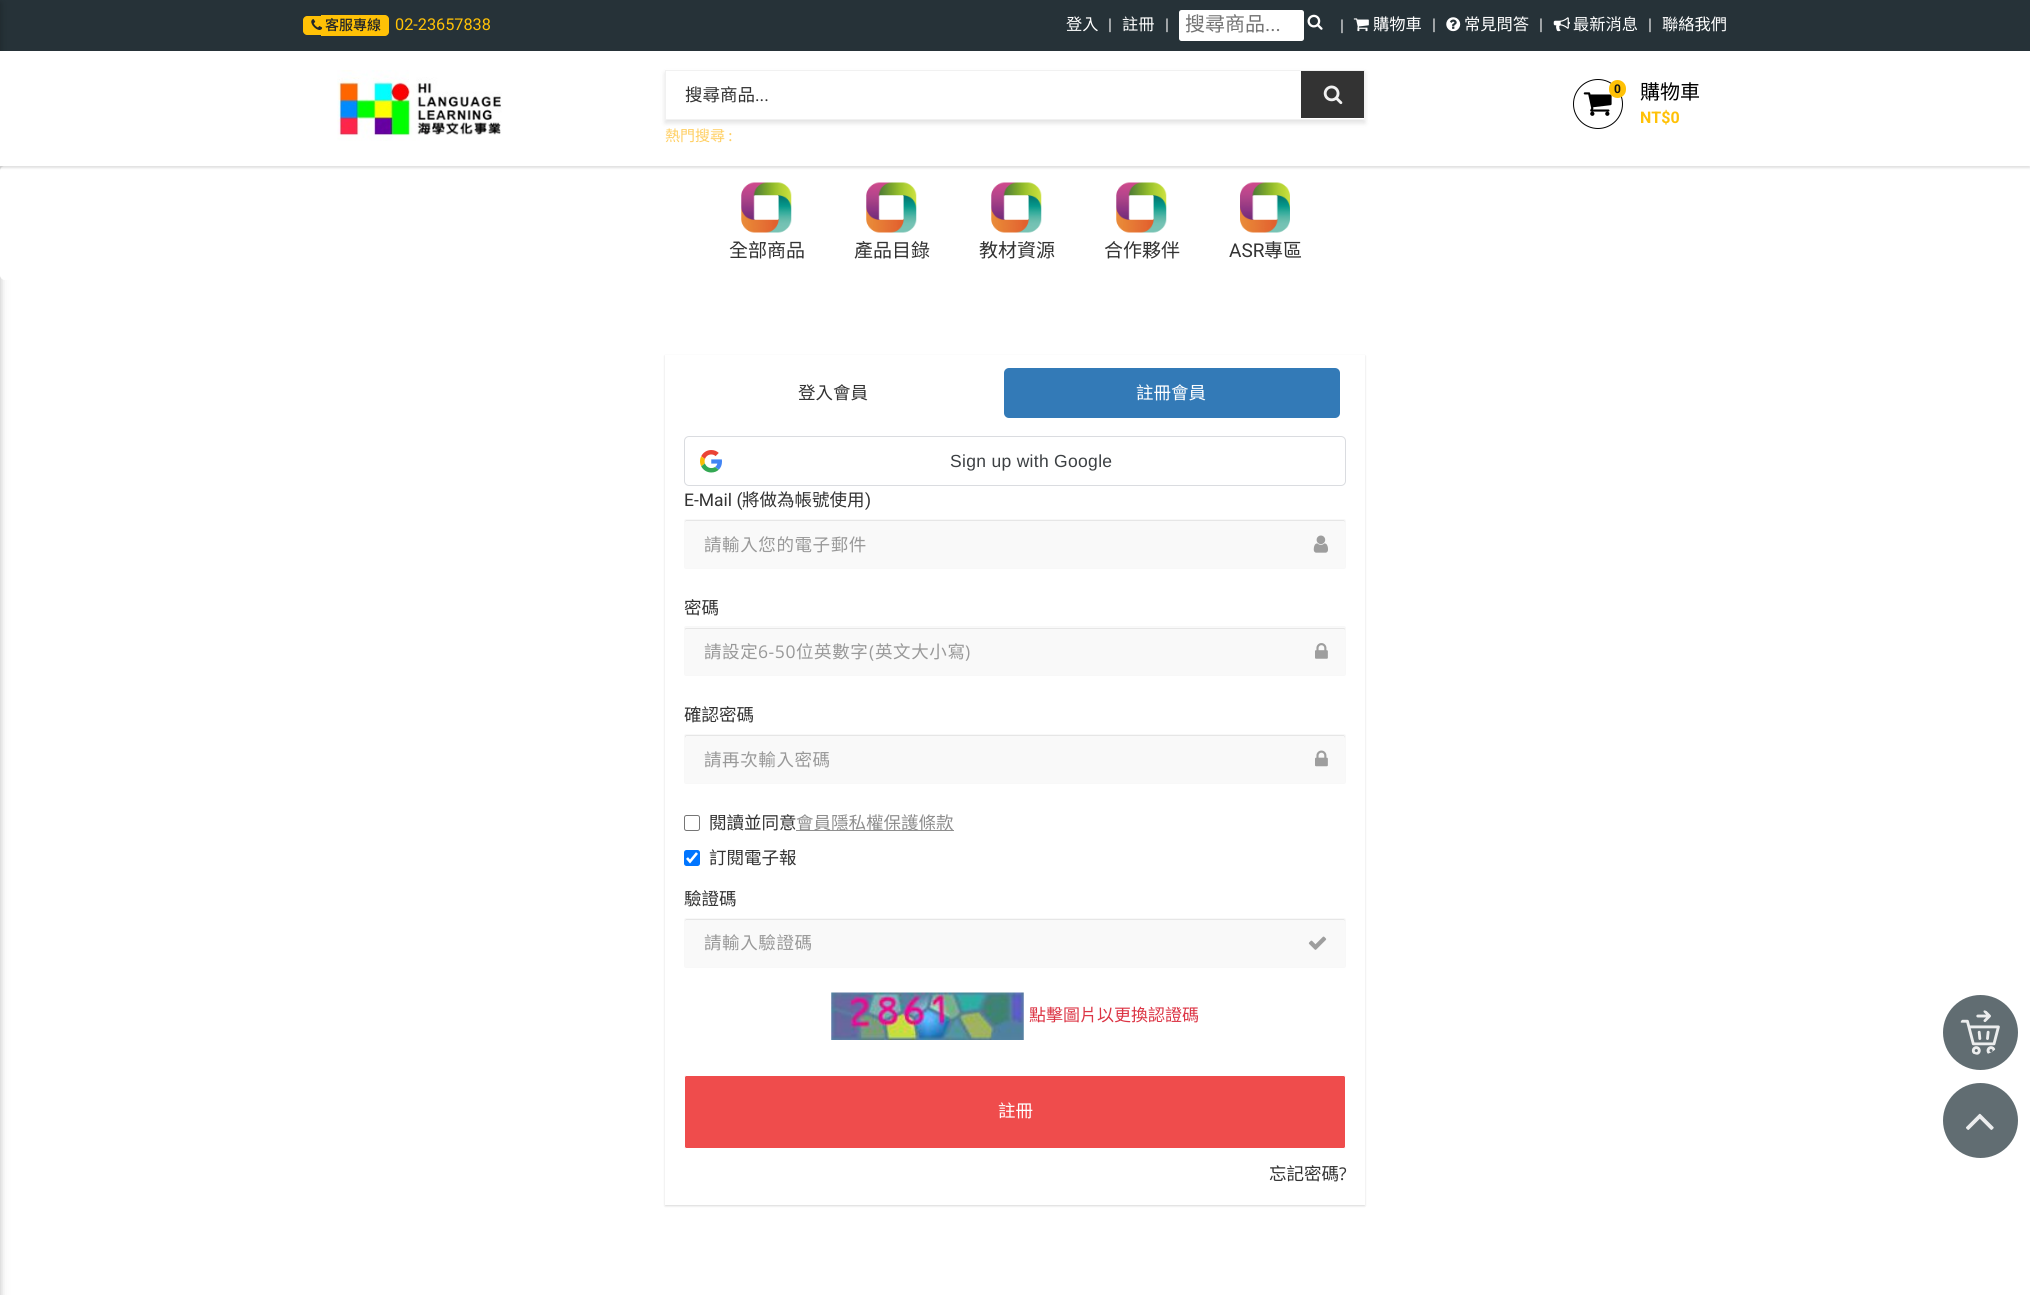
import math
import cairo

surface = cairo.ImageSurface(cairo.FORMAT_RGB24, 2030, 1295)
ctx = cairo.Context(surface)
options = cairo.FontOptions()
options.set_hint_metrics(cairo.HINT_METRICS_OFF)
options.set_hint_style(cairo.HINT_STYLE_NONE)
ctx.set_font_options(options)
ctx.set_miter_limit(4)


def spaced_text(x, y, s, letter, word):
    ctx.move_to(x, y)
    for ch in s:
        ctx.show_text(ch)
        ctx.rel_move_to(letter + word * (ch == ' '), 0)


def round_rect(x, y, w, h, r):
    ctx.new_sub_path()
    for i, (u, v) in enumerate([(x + w - r, y + h - r), (x + r, y + h - r), (x + r, y + r), (x + w - r, y + r)]):
        ctx.arc(u, v, r, i * math.pi / 2, (i + 1) * math.pi / 2)
    ctx.close_path()


def shadow(x, y, w, h, r, blur, alpha):
    ctx.push_group_with_content(cairo.CONTENT_ALPHA)
    ctx.set_operator(cairo.OPERATOR_SOURCE)
    for i in range(15, -16, -2):
        e = blur * i / 6
        if min(w, h) + 2 * e > 0:
            ctx.set_source_rgba(0, 0, 0, alpha * math.erfc((i - 1) / 8.5) / 2)
            round_rect(x - e, y - e, w + 2 * e, h + 2 * e, max(0, min(r + e + blur * .6, min(w, h) / 2 + e)))
            ctx.fill()
    ctx.mask(ctx.pop_group())


def picture(path, x, y, w, h):
    ctx.save()
    ctx.set_source_surface(cairo.ImageSurface.create_from_png(path), x, y)
    ctx.rectangle(x, y, w, h)
    ctx.fill()
    ctx.restore()


ctx.set_source_rgb(1, 1, 1)
ctx.paint()
ctx.set_source_rgb(0.149, 0.196, 0.22)
ctx.rectangle(0, 0, 2030, 51)
ctx.fill()
ctx.set_source_rgb(0, 0, 0)
shadow(-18, 3, 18, 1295, 0, 6, 0.12)
shadow(-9, 3, 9, 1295, 0, 3, 0.16)
ctx.set_source_rgb(1, 0.757, 0.027)
ctx.new_path()
ctx.move_to(307, 16)
ctx.line_to(321, 16)
ctx.line_to(321, 35)
ctx.line_to(307, 35)
ctx.curve_to(305, 35, 303, 33, 303, 31)
ctx.line_to(303, 20)
ctx.curve_to(303, 18, 305, 16, 307, 16)
ctx.close_path()
ctx.fill()
ctx.new_path()
ctx.move_to(321, 15)
ctx.line_to(385, 15)
ctx.curve_to(387, 15, 389, 17, 389, 19)
ctx.line_to(389, 32)
ctx.curve_to(389, 34, 387, 36, 385, 36)
ctx.line_to(321, 36)
ctx.close_path()
ctx.fill()
picture("img1.png", 311, 19, 12, 11)
ctx.select_font_face("Noto Sans TC Medium")
ctx.set_font_size(14)
ctx.set_source_rgb(0.129, 0.145, 0.161)
ctx.move_to(325, 30)
ctx.show_text("客服專線")
ctx.select_font_face("Roboto")
ctx.set_font_size(16.25)
ctx.set_source_rgb(1, 0.757, 0.027)
ctx.move_to(395, 30)
ctx.show_text("02-23657838")
ctx.select_font_face("Noto Sans TC")
ctx.set_source_rgb(1, 1, 1)
ctx.move_to(1066, 30)
ctx.show_text("登入")
ctx.select_font_face("Roboto")
ctx.set_source_rgb(0.945, 0.945, 0.945)
ctx.move_to(1108, 30)
ctx.show_text("|")
ctx.select_font_face("Noto Sans TC")
ctx.set_source_rgb(1, 1, 1)
ctx.move_to(1122, 30)
ctx.show_text("註冊")
ctx.select_font_face("Roboto")
ctx.set_source_rgb(0.945, 0.945, 0.945)
ctx.move_to(1165, 30)
ctx.show_text("|")
ctx.set_source_rgb(1, 1, 1)
round_rect(1179, 10, 125, 31, 2.5)
ctx.fill()
ctx.select_font_face("Noto Sans TC")
ctx.set_font_size(20)
ctx.set_source_rgb(0.459, 0.459, 0.459)
ctx.move_to(1185, 31)
ctx.show_text("搜尋商品")
ctx.select_font_face("Roboto")
ctx.move_to(1265, 31)
ctx.show_text("...")
picture("img2.png", 1307, 14, 16, 16)
ctx.set_font_size(16.25)
ctx.set_source_rgb(0.945, 0.945, 0.945)
ctx.move_to(1340, 31)
ctx.show_text("|")
picture("img3.png", 1353, 18, 16, 14)
ctx.select_font_face("Noto Sans TC")
ctx.set_source_rgb(1, 1, 1)
ctx.move_to(1373, 30)
ctx.show_text("購物車")
ctx.select_font_face("Roboto")
ctx.set_source_rgb(0.945, 0.945, 0.945)
ctx.move_to(1432, 30)
ctx.show_text("|")
picture("img4.png", 1446, 17, 15, 15)
ctx.select_font_face("Noto Sans TC")
ctx.set_source_rgb(1, 1, 1)
ctx.move_to(1464, 30)
ctx.show_text("常見問答")
ctx.select_font_face("Roboto")
ctx.set_source_rgb(0.945, 0.945, 0.945)
ctx.move_to(1539, 30)
ctx.show_text("|")
picture("img5.png", 1553, 17, 17, 15)
ctx.select_font_face("Noto Sans TC")
ctx.set_source_rgb(1, 1, 1)
ctx.move_to(1573, 30)
ctx.show_text("最新消息")
ctx.select_font_face("Roboto")
ctx.set_source_rgb(0.945, 0.945, 0.945)
ctx.move_to(1648, 30)
ctx.show_text("|")
ctx.select_font_face("Noto Sans TC")
ctx.set_source_rgb(1, 1, 1)
ctx.move_to(1662, 30)
ctx.show_text("聯絡我們")
round_rect(0.5, 166.5, 2029, 113, 4.5)
ctx.fill_preserve()
ctx.set_line_width(1)
ctx.stroke()
ctx.set_source_rgb(0, 0, 0)
shadow(0, 53, 2030, 115, 0, 1, 0.12)
ctx.set_source_rgb(1, 1, 1)
ctx.rectangle(0, 51, 2030, 115)
ctx.fill()
picture("img6.png", 337, 70, 165, 71)
ctx.save()
ctx.set_fill_rule(cairo.FILL_RULE_EVEN_ODD)
ctx.new_path()
ctx.move_to(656, 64)
ctx.line_to(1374, 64)
ctx.line_to(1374, 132)
ctx.line_to(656, 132)
ctx.close_path()
ctx.move_to(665, 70)
ctx.line_to(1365, 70)
ctx.line_to(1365, 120)
ctx.line_to(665, 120)
ctx.close_path()
ctx.clip()
ctx.set_source_rgb(0, 0, 0)
shadow(665, 73, 700, 50, 0, 2.5, 0.12)
ctx.restore()
ctx.rectangle(665.5, 70.5, 699, 49)
ctx.set_source_rgb(0.945, 0.945, 0.945)
ctx.stroke()
ctx.set_font_size(17.5)
ctx.set_source_rgb(0.2, 0.2, 0.2)
ctx.move_to(685, 101)
ctx.show_text("搜尋商品")
ctx.select_font_face("Roboto")
ctx.move_to(755, 101)
ctx.show_text("...")
ctx.rectangle(1301, 71, 63, 47)
ctx.fill()
picture("img7.png", 1323, 85, 20, 20)
ctx.select_font_face("Noto Sans TC")
ctx.set_font_size(15)
ctx.set_source_rgb(1, 0.812, 0.388)
ctx.move_to(665, 141)
ctx.show_text("熱門搜尋 :")
ctx.new_path()
ctx.arc(1598, 104, 24.5, 0, 2 * math.pi)
ctx.set_source_rgb(0, 0, 0)
ctx.stroke()
picture("img8.png", 1583, 92, 29, 24)
ctx.set_source_rgb(1, 0.757, 0.027)
round_rect(1609, 80, 17, 18, 8.5)
ctx.fill()
ctx.select_font_face("Roboto", cairo.FONT_SLANT_NORMAL, cairo.FONT_WEIGHT_BOLD)
ctx.set_font_size(12)
ctx.set_source_rgb(0.067, 0.067, 0.067)
ctx.move_to(1614, 93)
ctx.show_text("0")
ctx.select_font_face("Noto Sans TC")
ctx.set_font_size(20)
ctx.set_source_rgb(0, 0, 0)
ctx.move_to(1640, 99)
ctx.show_text("購物車")
ctx.select_font_face("Roboto", cairo.FONT_SLANT_NORMAL, cairo.FONT_WEIGHT_BOLD)
ctx.set_font_size(16)
ctx.set_source_rgb(1, 0.757, 0.027)
ctx.move_to(1640, 123)
ctx.show_text("NT$0")
picture("img9.png", 741, 182, 51, 51)
ctx.select_font_face("Noto Sans TC")
ctx.set_font_size(19)
ctx.set_source_rgb(0.2, 0.2, 0.2)
ctx.move_to(729, 257)
ctx.show_text("全部商品")
picture("img9.png", 866, 182, 51, 51)
ctx.move_to(854, 257)
ctx.show_text("產品目錄")
picture("img9.png", 991, 182, 51, 51)
ctx.move_to(979, 257)
ctx.show_text("教材資源")
picture("img9.png", 1116, 182, 51, 51)
ctx.move_to(1104, 257)
ctx.show_text("合作夥伴")
picture("img10.png", 1240, 182, 50, 51)
ctx.select_font_face("Roboto")
ctx.move_to(1229, 257)
ctx.show_text("ASR")
ctx.select_font_face("Noto Sans TC")
ctx.move_to(1264, 257)
ctx.show_text("專區")
ctx.save()
ctx.set_fill_rule(cairo.FILL_RULE_EVEN_ODD)
ctx.new_path()
ctx.move_to(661, 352)
ctx.line_to(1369, 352)
ctx.line_to(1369, 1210)
ctx.line_to(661, 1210)
ctx.close_path()
ctx.move_to(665, 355)
ctx.line_to(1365, 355)
ctx.line_to(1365, 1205)
ctx.line_to(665, 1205)
ctx.close_path()
ctx.clip()
ctx.set_source_rgb(0, 0, 0)
shadow(665, 356, 700, 850, 0, 1, 0.15)
ctx.restore()
ctx.set_font_size(17.5)
ctx.move_to(798, 399)
ctx.show_text("登入會員")
ctx.set_source_rgb(0.2, 0.478, 0.718)
round_rect(1004, 368, 336, 50, 5)
ctx.fill()
ctx.set_source_rgb(1, 1, 1)
ctx.move_to(1136, 399)
ctx.show_text("註冊會員")
round_rect(684.5, 436.5, 661, 49, 4.5)
ctx.set_source_rgb(0.855, 0.863, 0.878)
ctx.stroke()
picture("img11.png", 700, 450, 22, 23)
ctx.select_font_face("Liberation Sans")
ctx.set_source_rgb(0.235, 0.251, 0.263)
spaced_text(950, 467, "Sign up with Google", 0.3, 0)
ctx.select_font_face("Roboto")
ctx.set_source_rgb(0.2, 0.2, 0.2)
ctx.move_to(684, 506)
ctx.show_text("E-Mail (")
ctx.select_font_face("Noto Sans TC")
ctx.move_to(742, 506)
ctx.show_text("將做為帳號使用")
ctx.select_font_face("Roboto")
ctx.move_to(865, 506)
ctx.show_text(")")
ctx.set_source_rgb(0.976, 0.976, 0.976)
round_rect(684, 519, 662, 50, 2.5)
ctx.fill()
ctx.set_source_rgb(0.902, 0.902, 0.902)
ctx.new_path()
ctx.move_to(686, 521)
ctx.line_to(1344, 521)
ctx.line_to(1345, 522)
ctx.curve_to(1345, 521, 1345, 520, 1344, 520)
ctx.line_to(686, 520)
ctx.curve_to(685, 520, 685, 521, 685, 522)
ctx.close_path()
ctx.fill()
round_rect(684.5, 519.5, 661, 49, 2)
ctx.set_source_rgb(0.969, 0.969, 0.969)
ctx.stroke()
ctx.select_font_face("Noto Sans TC")
ctx.set_source_rgb(0.6, 0.6, 0.6)
spaced_text(704, 551, "請輸入您的電子郵件", 0.6, 0)
picture("img12.png", 1313, 535, 15, 18)
ctx.set_source_rgb(0.2, 0.2, 0.2)
ctx.move_to(684, 614)
ctx.show_text("密碼")
ctx.set_source_rgb(0.976, 0.976, 0.976)
round_rect(684, 626, 662, 50, 2.5)
ctx.fill()
ctx.set_source_rgb(0.902, 0.902, 0.902)
ctx.new_path()
ctx.move_to(686, 629)
ctx.line_to(1344, 629)
ctx.line_to(1345, 630)
ctx.curve_to(1345, 629, 1345, 628, 1344, 628)
ctx.line_to(686, 628)
ctx.curve_to(685, 628, 685, 629, 685, 630)
ctx.close_path()
ctx.fill()
round_rect(684.5, 626.5, 661, 49, 2)
ctx.set_source_rgb(0.969, 0.969, 0.969)
ctx.stroke()
ctx.set_source_rgb(0.6, 0.6, 0.6)
spaced_text(704, 658, "請設定", 0.6, 0)
ctx.select_font_face("Open Sans")
spaced_text(758, 658, "6-50", 0.6, 0)
ctx.select_font_face("Noto Sans TC")
spaced_text(796, 658, "位英數字", 0.6, 0)
ctx.select_font_face("Open Sans")
spaced_text(869, 658, "(", 0.6, 0)
ctx.select_font_face("Noto Sans TC")
spaced_text(875, 658, "英文大小寫", 0.6, 0)
ctx.select_font_face("Open Sans")
spaced_text(965, 658, ")", 0.6, 0)
picture("img13.png", 1315, 643, 13, 16)
ctx.select_font_face("Noto Sans TC")
ctx.set_source_rgb(0.2, 0.2, 0.2)
ctx.move_to(684, 721)
ctx.show_text("確認密碼")
ctx.set_source_rgb(0.976, 0.976, 0.976)
round_rect(684, 734, 662, 50, 2.5)
ctx.fill()
ctx.set_source_rgb(0.902, 0.902, 0.902)
ctx.new_path()
ctx.move_to(686, 736)
ctx.line_to(1344, 736)
ctx.line_to(1345, 738)
ctx.curve_to(1345, 737, 1345, 735, 1344, 735)
ctx.line_to(686, 735)
ctx.line_to(685, 735)
ctx.line_to(685, 738)
ctx.close_path()
ctx.fill()
round_rect(684.5, 734.5, 661, 49, 2)
ctx.set_source_rgb(0.969, 0.969, 0.969)
ctx.stroke()
ctx.set_source_rgb(0.6, 0.6, 0.6)
spaced_text(704, 766, "請再次輸入密碼", 0.6, 0)
picture("img14.png", 1315, 750, 13, 17)
round_rect(684.5, 815.5, 15, 15, 2)
ctx.set_source_rgb(0.463, 0.463, 0.463)
ctx.stroke()
ctx.set_source_rgb(0.2, 0.2, 0.2)
ctx.move_to(709, 829)
ctx.show_text("閱讀並同意")
ctx.set_source_rgb(0.557, 0.557, 0.557)
ctx.rectangle(796, 830, 158, 1)
ctx.fill()
ctx.move_to(796, 829)
ctx.show_text("會員隱私權保護條款")
ctx.set_source_rgb(0, 0.459, 1)
round_rect(684, 850, 16, 16, 2.5)
ctx.fill()
ctx.new_path()
ctx.move_to(687, 858)
ctx.line_to(690, 861.5)
ctx.line_to(697, 853)
ctx.set_source_rgb(1, 1, 1)
ctx.set_line_width(2.6)
ctx.stroke()
ctx.set_source_rgb(0.2, 0.2, 0.2)
ctx.move_to(709, 864)
ctx.show_text("訂閱電子報")
ctx.move_to(684, 905)
ctx.show_text("驗證碼")
ctx.set_source_rgb(0.976, 0.976, 0.976)
round_rect(684, 918, 662, 50, 2.5)
ctx.fill()
ctx.set_source_rgb(0.902, 0.902, 0.902)
ctx.new_path()
ctx.move_to(686, 920)
ctx.line_to(1344, 920)
ctx.line_to(1345, 921)
ctx.curve_to(1345, 920, 1345, 919, 1344, 919)
ctx.line_to(686, 919)
ctx.curve_to(685, 919, 685, 920, 685, 921)
ctx.close_path()
ctx.fill()
round_rect(684.5, 918.5, 661, 49, 2)
ctx.set_source_rgb(0.969, 0.969, 0.969)
ctx.set_line_width(1)
ctx.stroke()
ctx.set_source_rgb(0.6, 0.6, 0.6)
spaced_text(704, 949, "請輸入驗證碼", 0.6, 0)
picture("img15.png", 1308, 936, 19, 14)
picture("img16.png", 831, 992, 193, 48)
ctx.set_font_size(17)
ctx.set_source_rgb(0.863, 0.208, 0.271)
ctx.move_to(1029, 1021)
ctx.show_text("點擊圖片以更換認證碼")
ctx.set_source_rgb(0.937, 0.298, 0.298)
round_rect(684.5, 1075.5, 661, 73, 2)
ctx.fill_preserve()
ctx.set_source_rgb(1, 1, 1)
ctx.stroke()
ctx.set_font_size(17.5)
ctx.move_to(998, 1117)
ctx.show_text("註冊")
ctx.set_source_rgb(0.2, 0.2, 0.2)
ctx.move_to(1269, 1180)
ctx.show_text("忘記密碼")
ctx.select_font_face("Open Sans")
ctx.move_to(1339, 1180)
ctx.show_text("?")
ctx.set_source_rgb(0.38, 0.427, 0.447)
ctx.new_path()
ctx.arc(1980.5, 1032.5, 37.5, 0, 2 * math.pi)
ctx.fill()
picture("img17.png", 1960, 1010, 40, 45)
ctx.arc(1980.5, 1120.5, 37.5, 0, 2 * math.pi)
ctx.fill()
picture("img18.png", 1966, 1113, 28, 17)
surface.write_to_png("page.png")
